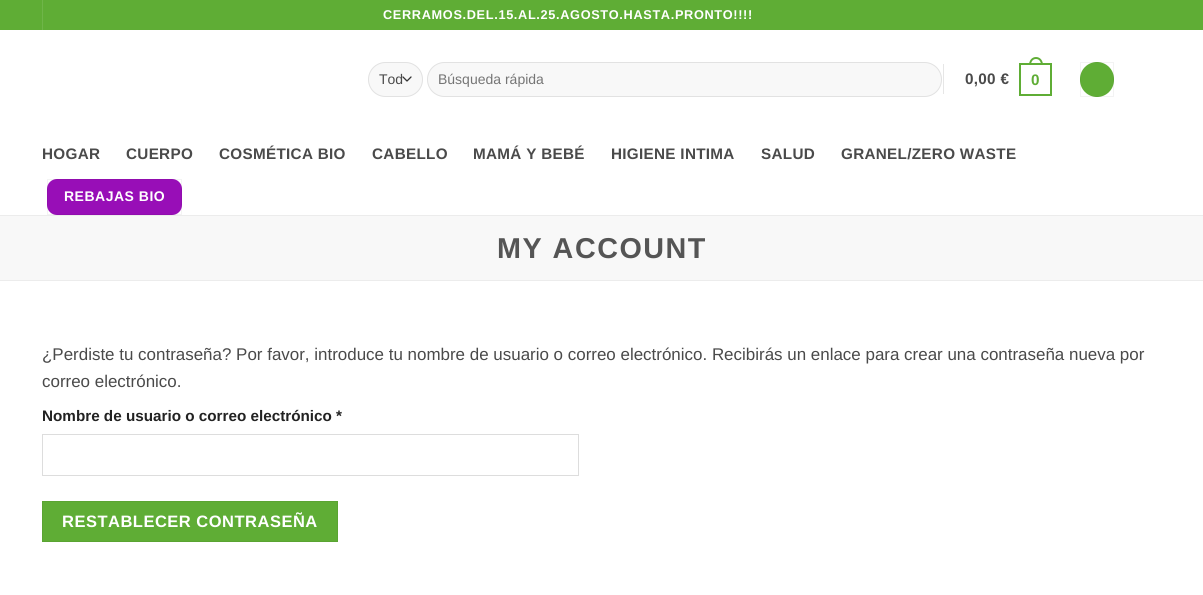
import math
import cairo

surface = cairo.ImageSurface(cairo.FORMAT_RGB24, 1203, 595)
ctx = cairo.Context(surface)
options = cairo.FontOptions()
options.set_hint_metrics(cairo.HINT_METRICS_OFF)
options.set_hint_style(cairo.HINT_STYLE_NONE)
ctx.set_font_options(options)
ctx.set_miter_limit(4)


def spaced_text(x, y, s, letter, word):
    ctx.move_to(x, y)
    for ch in s:
        ctx.show_text(ch)
        ctx.rel_move_to(letter + word * (ch == ' '), 0)


def round_rect(x, y, w, h, r):
    ctx.new_sub_path()
    for i, (u, v) in enumerate([(x + w - r, y + h - r), (x + r, y + h - r), (x + r, y + r), (x + w - r, y + r)]):
        ctx.arc(u, v, r, i * math.pi / 2, (i + 1) * math.pi / 2)
    ctx.close_path()


ctx.set_source_rgb(1, 1, 1)
ctx.paint()
ctx.set_source_rgb(0.373, 0.678, 0.208)
ctx.rectangle(0, 0, 1203, 30)
ctx.fill()
ctx.set_source_rgb(0.435, 0.71, 0.286)
ctx.rectangle(42, 0, 1, 30)
ctx.fill()
ctx.select_font_face("Liberation Sans", cairo.FONT_SLANT_NORMAL, cairo.FONT_WEIGHT_BOLD)
ctx.set_font_size(12.75)
ctx.set_source_rgb(1, 1, 1)
spaced_text(383, 19, "CERRAMOS.DEL.15.AL.25.AGOSTO.HASTA.PRONTO!!!!", 0.65, 0)
ctx.set_source_rgb(0.969, 0.969, 0.969)
round_rect(368, 62, 55, 35, 17.5)
ctx.fill()
ctx.new_path()
ctx.move_to(403, 77)
ctx.line_to(407, 81)
ctx.line_to(411, 77)
ctx.set_source_rgb(0.2, 0.2, 0.2)
ctx.set_line_width(1.3)
ctx.set_line_cap(cairo.LINE_CAP_ROUND)
ctx.set_line_join(cairo.LINE_JOIN_ROUND)
ctx.stroke()
round_rect(368.5, 62.5, 54, 34, 17)
ctx.set_source_rgba(0, 0, 0, 0.09)
ctx.set_line_width(1)
ctx.set_line_cap(cairo.LINE_CAP_BUTT)
ctx.set_line_join(cairo.LINE_JOIN_MITER)
ctx.stroke()
ctx.save()
ctx.rectangle(379, 68, 23, 23)
ctx.clip()
ctx.select_font_face("Liberation Sans")
ctx.set_font_size(14)
ctx.set_source_rgb(0.29, 0.29, 0.29)
ctx.move_to(379, 84)
ctx.show_text("Tod")
ctx.restore()
ctx.set_source_rgb(0.969, 0.969, 0.969)
round_rect(427, 62, 515, 35, 17.5)
ctx.fill()
round_rect(427.5, 62.5, 514, 34, 17)
ctx.set_source_rgba(0, 0, 0, 0.09)
ctx.stroke()
ctx.select_font_face("Liberation Sans")
ctx.set_font_size(14)
ctx.set_source_rgb(0.459, 0.459, 0.459)
ctx.move_to(438, 84)
ctx.show_text("Búsqueda rápida")
ctx.set_source_rgb(0.902, 0.902, 0.902)
ctx.rectangle(943, 64, 1, 30)
ctx.fill()
ctx.select_font_face("Liberation Sans", cairo.FONT_SLANT_NORMAL, cairo.FONT_WEIGHT_BOLD)
ctx.set_font_size(15.25)
ctx.set_source_rgb(0.29, 0.29, 0.29)
spaced_text(965, 84, "0,00 €", 0.3, 0)
ctx.rectangle(1020, 64, 31, 31)
ctx.set_source_rgb(0.373, 0.678, 0.208)
ctx.set_line_width(2)
ctx.stroke()
ctx.set_fill_rule(cairo.FILL_RULE_EVEN_ODD)
ctx.new_path()
ctx.move_to(1036, 57)
ctx.curve_to(1040.5, 57, 1043, 61, 1043, 65)
ctx.line_to(1029, 65)
ctx.curve_to(1029, 61, 1031.5, 57, 1036, 57)
ctx.close_path()
ctx.move_to(1036, 59)
ctx.curve_to(1039.5, 59, 1041, 62, 1041, 65)
ctx.line_to(1031, 65)
ctx.curve_to(1031, 62, 1032.5, 59, 1036, 59)
ctx.close_path()
ctx.fill()
spaced_text(1031, 85, "0", 0.3, 0)
round_rect(1080, 62, 34, 35, 17)
ctx.fill()
ctx.rectangle(1080.5, 62.5, 33, 34)
ctx.set_source_rgba(0, 0, 0, 0.05)
ctx.set_line_width(1)
ctx.stroke()
ctx.set_source_rgb(0.29, 0.29, 0.29)
spaced_text(42, 159, "HOGAR", 0.3, 0)
spaced_text(126, 159, "CUERPO", 0.3, 0)
spaced_text(219, 159, "COSMÉTICA BIO", 0.3, 0)
spaced_text(372, 159, "CABELLO", 0.3, 0)
spaced_text(473, 159, "MAMÁ Y BEBÉ", 0.3, 0)
spaced_text(611, 159, "HIGIENE INTIMA", 0.3, 0)
spaced_text(761, 159, "SALUD", 0.3, 0)
spaced_text(841, 159, "GRANEL/ZERO WASTE", 0.3, 0)
ctx.set_source_rgb(0.596, 0.055, 0.718)
round_rect(47, 179, 135, 36, 10)
ctx.fill()
ctx.rectangle(47.5, 179.5, 134, 35)
ctx.set_source_rgba(0, 0, 0, 0.05)
ctx.stroke()
ctx.set_font_size(14)
ctx.set_source_rgb(1, 1, 1)
spaced_text(64, 201, "REBAJAS BIO", 0.5, 0)
ctx.set_source_rgb(0.969, 0.969, 0.969)
ctx.rectangle(0, 216, 1203, 64)
ctx.fill()
ctx.set_source_rgb(0.925, 0.925, 0.925)
ctx.rectangle(0, 215, 1203, 1)
ctx.fill()
ctx.rectangle(0, 280, 1203, 1)
ctx.fill()
ctx.set_font_size(28.75)
ctx.set_source_rgb(0.333, 0.333, 0.333)
spaced_text(497, 258, "MY ACCOUNT", 1.5, 0)
ctx.select_font_face("Liberation Sans")
ctx.set_font_size(16.95)
ctx.set_source_rgb(0.29, 0.29, 0.29)
ctx.move_to(42, 360)
ctx.show_text("¿Perdiste tu contraseña? Por favor, introduce tu nombre de usuario o correo electrónico. Recibirás un enlace para crear una contraseña nueva por")
ctx.move_to(42, 387)
ctx.show_text("correo electrónico.")
ctx.select_font_face("Liberation Sans", cairo.FONT_SLANT_NORMAL, cairo.FONT_WEIGHT_BOLD)
ctx.set_font_size(15.25)
ctx.set_source_rgb(0.133, 0.133, 0.133)
ctx.move_to(42, 421)
ctx.show_text("Nombre de usuario o correo electrónico *")
ctx.rectangle(42.5, 434.5, 536, 41)
ctx.set_source_rgb(0.867, 0.867, 0.867)
ctx.stroke()
ctx.set_source_rgb(0.373, 0.678, 0.208)
ctx.rectangle(42.5, 501.5, 295, 40)
ctx.fill_preserve()
ctx.set_source_rgb(0.353, 0.643, 0.196)
ctx.stroke()
ctx.set_font_size(16.5)
ctx.set_source_rgb(1, 1, 1)
spaced_text(62, 527, "RESTABLECER CONTRASEÑA", 0.5, 0)
surface.write_to_png("page.png")
